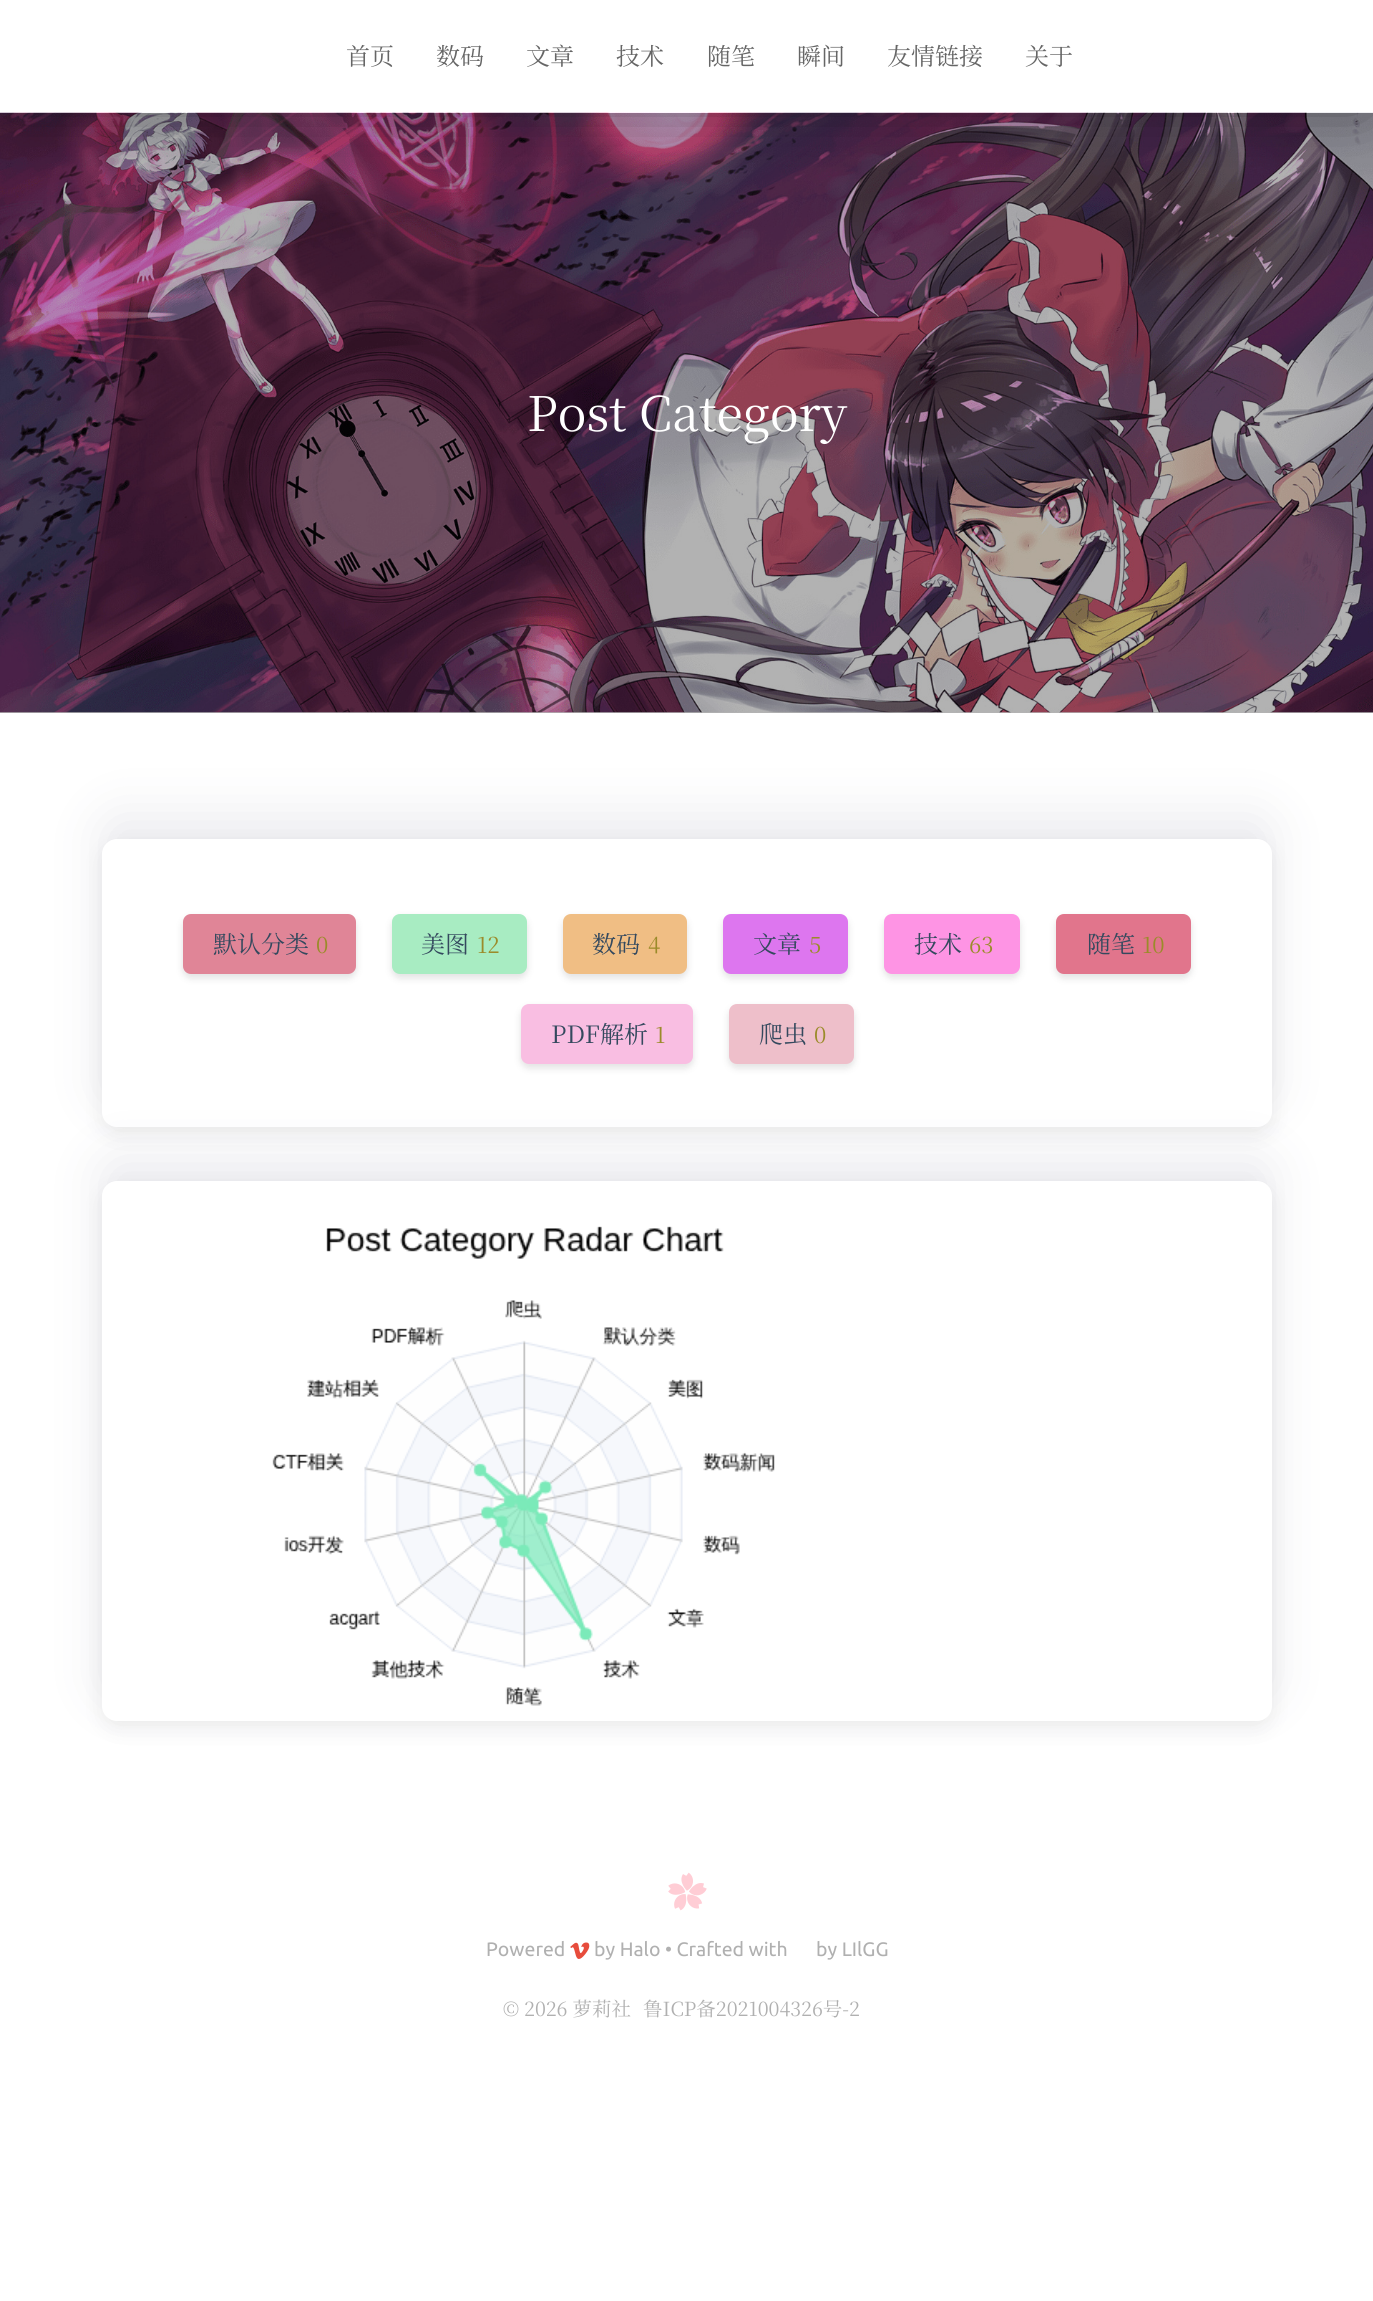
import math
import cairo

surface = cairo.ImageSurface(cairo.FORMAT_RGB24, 1373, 2301)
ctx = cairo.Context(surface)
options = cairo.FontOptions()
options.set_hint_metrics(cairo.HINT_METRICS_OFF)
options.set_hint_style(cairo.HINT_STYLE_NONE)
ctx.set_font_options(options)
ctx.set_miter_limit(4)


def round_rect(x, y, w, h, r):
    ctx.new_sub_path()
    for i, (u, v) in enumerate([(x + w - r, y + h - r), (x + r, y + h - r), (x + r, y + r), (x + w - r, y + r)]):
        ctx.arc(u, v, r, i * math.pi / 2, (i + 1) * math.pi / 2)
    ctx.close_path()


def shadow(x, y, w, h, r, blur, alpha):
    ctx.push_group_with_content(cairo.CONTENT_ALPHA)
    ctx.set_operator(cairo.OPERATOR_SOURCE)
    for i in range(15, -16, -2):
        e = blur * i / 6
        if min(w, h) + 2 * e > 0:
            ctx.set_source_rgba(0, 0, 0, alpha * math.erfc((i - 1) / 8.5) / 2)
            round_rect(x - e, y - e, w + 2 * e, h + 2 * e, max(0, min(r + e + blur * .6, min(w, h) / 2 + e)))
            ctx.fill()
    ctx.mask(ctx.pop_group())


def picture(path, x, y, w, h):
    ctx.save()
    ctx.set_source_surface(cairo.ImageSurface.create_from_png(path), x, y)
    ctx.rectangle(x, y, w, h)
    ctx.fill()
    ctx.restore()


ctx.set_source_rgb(1, 1, 1)
ctx.paint()
ctx.set_source_rgb(0.702, 0.702, 0.702)
ctx.rectangle(0, 712, 1373, 1)
ctx.fill()
picture("img1.png", 0, 112, 1373, 601)
ctx.save()
ctx.set_fill_rule(cairo.FILL_RULE_EVEN_ODD)
ctx.new_path()
ctx.move_to(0, 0)
ctx.line_to(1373, 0)
ctx.line_to(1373, 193)
ctx.line_to(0, 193)
ctx.close_path()
ctx.move_to(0, 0)
ctx.line_to(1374, 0)
ctx.line_to(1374, 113)
ctx.line_to(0, 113)
ctx.close_path()
ctx.clip()
ctx.set_source_rgb(0, 0, 0)
shadow(12, 14, 1350, 88, 0, 30, 0.5)
ctx.restore()
ctx.select_font_face("Noto Serif SC ExtraLight")
ctx.set_font_size(24)
ctx.set_source_rgb(0.4, 0.4, 0.4)
ctx.move_to(346, 65)
ctx.show_text("首页")
ctx.move_to(436, 65)
ctx.show_text("数码")
ctx.move_to(526, 65)
ctx.show_text("文章")
ctx.move_to(616, 65)
ctx.show_text("技术")
ctx.move_to(707, 65)
ctx.show_text("随笔")
ctx.move_to(797, 65)
ctx.show_text("瞬间")
ctx.move_to(887, 65)
ctx.show_text("友情链接")
ctx.move_to(1025, 65)
ctx.show_text("关于")
ctx.set_font_size(48)
ctx.set_source_rgb(1, 1, 1)
ctx.move_to(527, 431)
ctx.show_text("Post Category")
ctx.set_source_rgb(0, 0, 0)
shadow(102, 846, 1170, 288, 15, 11, 0.07)
ctx.set_source_rgb(0.196, 0.196, 0.365)
shadow(102, 816, 1170, 288, 15, 26, 0.1)
ctx.set_source_rgb(1, 1, 1)
round_rect(102, 839, 1170, 288, 15)
ctx.fill()
ctx.set_source_rgb(0, 0, 0)
shadow(183, 918, 173, 60, 8, 4, 0.12)
ctx.set_source_rgb(0.878, 0.522, 0.592)
round_rect(183, 914, 173, 60, 8)
ctx.fill()
ctx.set_font_size(24)
ctx.set_source_rgb(0.204, 0.286, 0.369)
ctx.move_to(213, 953)
ctx.show_text("默认分类")
ctx.set_font_size(22)
ctx.set_source_rgb(0.608, 0.545, 0.165)
ctx.move_to(316, 953)
ctx.show_text("0")
ctx.set_source_rgb(0, 0, 0)
shadow(392, 918, 135, 60, 8, 4, 0.12)
ctx.set_source_rgb(0.659, 0.922, 0.761)
round_rect(392, 914, 135, 60, 8)
ctx.fill()
ctx.set_font_size(24)
ctx.set_source_rgb(0.204, 0.286, 0.369)
ctx.move_to(421, 953)
ctx.show_text("美图")
ctx.set_font_size(22)
ctx.set_source_rgb(0.608, 0.545, 0.165)
ctx.move_to(477, 953)
ctx.show_text("12")
ctx.set_source_rgb(0, 0, 0)
shadow(563, 918, 124, 60, 8, 4, 0.12)
ctx.set_source_rgb(0.941, 0.745, 0.518)
round_rect(563, 914, 124, 60, 8)
ctx.fill()
ctx.set_font_size(24)
ctx.set_source_rgb(0.204, 0.286, 0.369)
ctx.move_to(592, 953)
ctx.show_text("数码")
ctx.set_font_size(22)
ctx.set_source_rgb(0.608, 0.545, 0.165)
ctx.move_to(648, 953)
ctx.show_text("4")
ctx.set_source_rgb(0, 0, 0)
shadow(723, 918, 125, 60, 8, 4, 0.12)
ctx.set_source_rgb(0.867, 0.463, 0.937)
round_rect(723, 914, 125, 60, 8)
ctx.fill()
ctx.set_font_size(24)
ctx.set_source_rgb(0.204, 0.286, 0.369)
ctx.move_to(753, 953)
ctx.show_text("文章")
ctx.set_font_size(22)
ctx.set_source_rgb(0.608, 0.545, 0.165)
ctx.move_to(809, 953)
ctx.show_text("5")
ctx.set_source_rgb(0, 0, 0)
shadow(884, 918, 136, 60, 8, 4, 0.12)
ctx.set_source_rgb(0.996, 0.58, 0.894)
round_rect(884, 914, 136, 60, 8)
ctx.fill()
ctx.set_font_size(24)
ctx.set_source_rgb(0.204, 0.286, 0.369)
ctx.move_to(914, 953)
ctx.show_text("技术")
ctx.set_font_size(22)
ctx.set_source_rgb(0.608, 0.545, 0.165)
ctx.move_to(969, 953)
ctx.show_text("63")
ctx.set_source_rgb(0, 0, 0)
shadow(1056, 918, 135, 60, 8, 4, 0.12)
ctx.set_source_rgb(0.882, 0.459, 0.549)
round_rect(1056, 914, 135, 60, 8)
ctx.fill()
ctx.set_font_size(24)
ctx.set_source_rgb(0.204, 0.286, 0.369)
ctx.move_to(1087, 953)
ctx.show_text("随笔")
ctx.set_font_size(22)
ctx.set_source_rgb(0.608, 0.545, 0.165)
ctx.move_to(1142, 953)
ctx.show_text("10")
ctx.set_source_rgb(0, 0, 0)
shadow(521, 1008, 172, 60, 8, 4, 0.12)
ctx.set_source_rgb(0.976, 0.745, 0.886)
round_rect(521, 1004, 172, 60, 8)
ctx.fill()
ctx.set_font_size(24)
ctx.set_source_rgb(0.204, 0.286, 0.369)
ctx.move_to(551, 1043)
ctx.show_text("PDF解析")
ctx.set_font_size(22)
ctx.set_source_rgb(0.608, 0.545, 0.165)
ctx.move_to(655, 1043)
ctx.show_text("1")
ctx.set_source_rgb(0, 0, 0)
shadow(729, 1008, 125, 60, 8, 4, 0.12)
ctx.set_source_rgb(0.933, 0.749, 0.792)
round_rect(729, 1004, 125, 60, 8)
ctx.fill()
ctx.set_font_size(24)
ctx.set_source_rgb(0.204, 0.286, 0.369)
ctx.move_to(759, 1043)
ctx.show_text("爬虫")
ctx.set_font_size(22)
ctx.set_source_rgb(0.608, 0.545, 0.165)
ctx.move_to(814, 1043)
ctx.show_text("0")
ctx.set_source_rgb(0, 0, 0)
shadow(102, 1188, 1170, 540, 15, 11, 0.07)
ctx.set_source_rgb(0.196, 0.196, 0.365)
shadow(102, 1158, 1170, 540, 15, 26, 0.1)
ctx.set_source_rgb(1, 1, 1)
round_rect(102, 1181, 1170, 540, 15)
ctx.fill()
picture("img2.png", 272, 1226, 503, 480)
picture("img3.png", 668, 1872, 39, 39)
ctx.select_font_face("Ubuntu")
ctx.set_font_size(19.5)
ctx.set_source_rgb(0.69, 0.69, 0.69)
ctx.move_to(486, 1956)
ctx.show_text("Powered")
picture("img4.png", 570, 1942, 20, 17)
ctx.move_to(594, 1956)
ctx.show_text("by Halo • Crafted with")
ctx.move_to(816, 1956)
ctx.show_text("by LIlGG")
ctx.select_font_face("Noto Serif SC ExtraLight")
ctx.move_to(503, 2016)
ctx.show_text("© 2026 萝莉社")
ctx.move_to(643, 2016)
ctx.show_text("鲁ICP备2021004326号-2")
surface.write_to_png("page.png")
